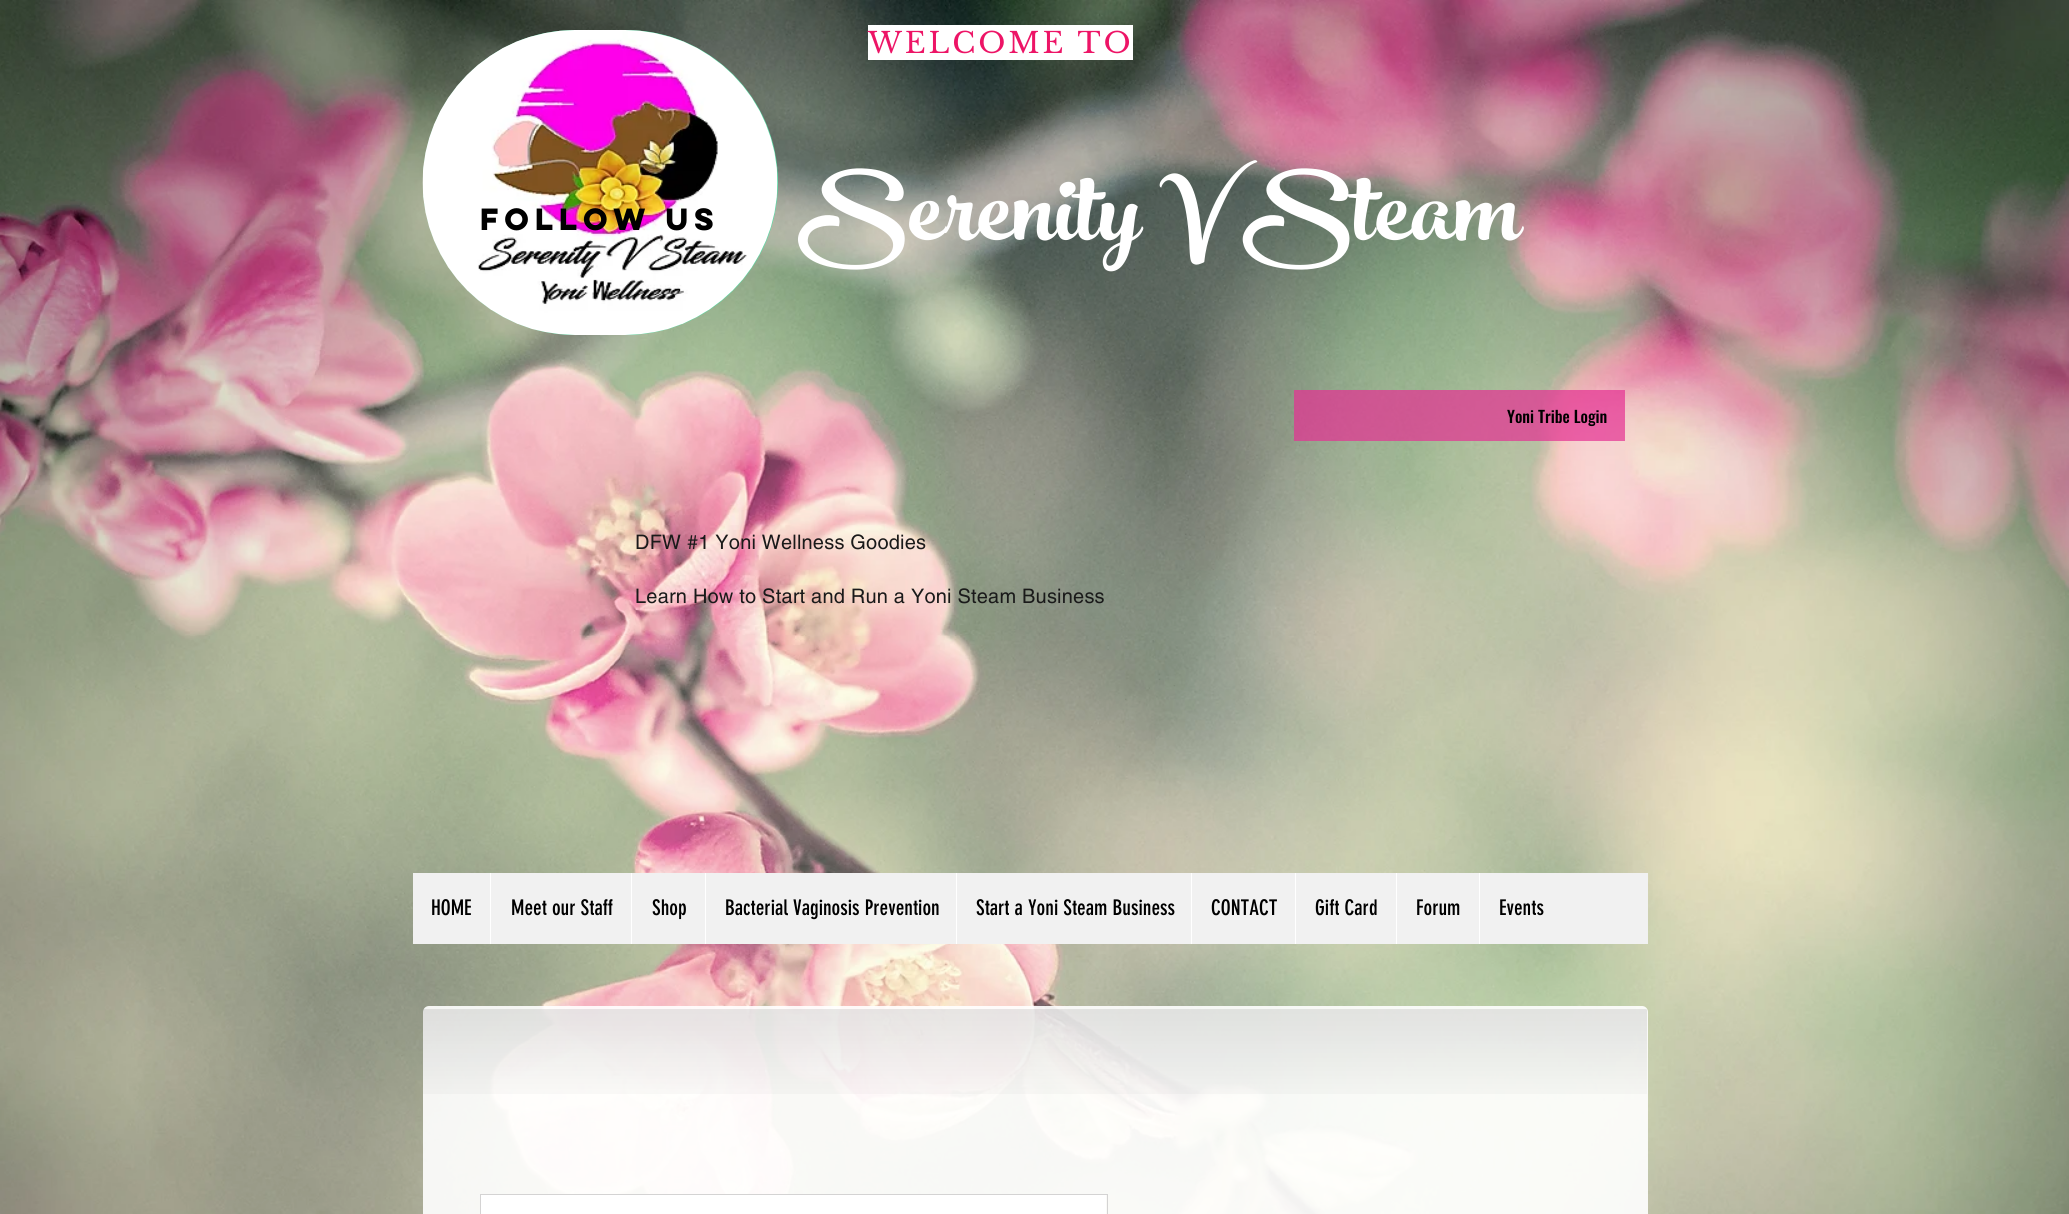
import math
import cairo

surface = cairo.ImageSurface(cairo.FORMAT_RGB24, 2069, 1214)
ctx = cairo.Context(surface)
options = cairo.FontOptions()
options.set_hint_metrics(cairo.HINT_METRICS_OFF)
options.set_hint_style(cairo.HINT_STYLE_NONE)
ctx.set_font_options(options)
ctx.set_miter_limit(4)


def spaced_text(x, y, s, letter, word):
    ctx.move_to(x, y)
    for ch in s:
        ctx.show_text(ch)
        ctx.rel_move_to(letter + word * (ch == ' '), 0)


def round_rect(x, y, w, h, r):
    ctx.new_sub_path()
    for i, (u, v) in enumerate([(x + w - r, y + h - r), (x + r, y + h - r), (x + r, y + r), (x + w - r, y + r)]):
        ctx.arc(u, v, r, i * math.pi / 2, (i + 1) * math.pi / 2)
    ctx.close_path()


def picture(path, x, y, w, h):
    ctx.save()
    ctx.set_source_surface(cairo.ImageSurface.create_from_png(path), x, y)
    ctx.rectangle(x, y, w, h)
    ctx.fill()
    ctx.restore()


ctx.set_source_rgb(1, 1, 1)
ctx.paint()
picture("img1.png", 0, 0, 2069, 1214)
ctx.set_source_rgb(1, 1, 1)
ctx.rectangle(868, 25, 265, 35)
ctx.fill()
ctx.select_font_face("Libre Baskerville")
ctx.set_font_size(28.75)
ctx.set_source_rgb(0.929, 0.082, 0.4)
spaced_text(868, 53, "WELCOME TO", 2.9, 0)
ctx.set_source_rgb(0.353, 0.859, 0.651)
round_rect(423, 30, 355, 305, 152.5)
ctx.fill()
picture("img2.png", 422, 30, 356, 305)
ctx.select_font_face("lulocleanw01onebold", cairo.FONT_SLANT_NORMAL, cairo.FONT_WEIGHT_BOLD)
ctx.set_font_size(27.5)
ctx.set_source_rgb(0, 0, 0)
ctx.move_to(480, 230)
ctx.show_text("follow US")
ctx.select_font_face("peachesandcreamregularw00")
ctx.set_font_size(146.25)
ctx.set_source_rgb(1, 1, 1)
spaced_text(798, 240, "Serenity V Steam", 1.5, 0)
ctx.set_source_rgba(0.894, 0.196, 0.573, 0.71)
ctx.rectangle(1294, 390, 331, 51)
ctx.fill()
ctx.select_font_face("Oswald Medium")
ctx.set_font_size(16.25)
ctx.set_source_rgb(0, 0, 0)
ctx.move_to(1507, 423)
ctx.show_text("Yoni Tribe Login")
ctx.select_font_face("helvetica")
ctx.set_font_size(20)
ctx.set_source_rgb(0.102, 0.102, 0.102)
spaced_text(635, 549, "DFW #1 Yoni Wellness Goodies", 0.2, 0)
spaced_text(635, 603, "Learn How to Start and Run a Yoni Steam Business", 0.2, 0)
ctx.set_source_rgb(0.945, 0.945, 0.945)
ctx.rectangle(413, 873, 1235, 71)
ctx.fill()
ctx.select_font_face("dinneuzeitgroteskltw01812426")
ctx.set_font_size(21.25)
ctx.set_source_rgb(0, 0, 0)
ctx.move_to(431, 915)
ctx.show_text("HOME")
ctx.set_source_rgb(1, 1, 1)
ctx.rectangle(490, 873, 1, 71)
ctx.fill()
ctx.set_source_rgb(0, 0, 0)
ctx.move_to(511, 915)
ctx.show_text("Meet our Staff")
ctx.set_source_rgb(1, 1, 1)
ctx.rectangle(631, 873, 1, 71)
ctx.fill()
ctx.set_source_rgb(0, 0, 0)
ctx.move_to(652, 915)
ctx.show_text("Shop")
ctx.set_source_rgb(1, 1, 1)
ctx.rectangle(705, 873, 1, 71)
ctx.fill()
ctx.set_source_rgb(0, 0, 0)
ctx.move_to(725, 915)
ctx.show_text("Bacterial Vaginosis Prevention")
ctx.set_source_rgb(1, 1, 1)
ctx.rectangle(956, 873, 1, 71)
ctx.fill()
ctx.set_source_rgb(0, 0, 0)
ctx.move_to(976, 915)
ctx.show_text("Start a Yoni Steam Business")
ctx.set_source_rgb(1, 1, 1)
ctx.rectangle(1191, 873, 1, 71)
ctx.fill()
ctx.set_source_rgb(0, 0, 0)
ctx.move_to(1211, 915)
ctx.show_text("CONTACT")
ctx.set_source_rgb(1, 1, 1)
ctx.rectangle(1295, 873, 1, 71)
ctx.fill()
ctx.set_source_rgb(0, 0, 0)
ctx.move_to(1315, 915)
ctx.show_text("Gift Card")
ctx.set_source_rgb(1, 1, 1)
ctx.rectangle(1396, 873, 1, 71)
ctx.fill()
ctx.set_source_rgb(0, 0, 0)
ctx.move_to(1416, 915)
ctx.show_text("Forum")
ctx.set_source_rgb(1, 1, 1)
ctx.rectangle(1479, 873, 1, 71)
ctx.fill()
ctx.set_source_rgb(0, 0, 0)
ctx.move_to(1499, 915)
ctx.show_text("Events")
ctx.set_source_rgba(1, 1, 1, 0.9)
round_rect(423, 1006, 1225, 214, 6)
ctx.fill()
picture("img3.png", 423, 1009, 1224, 85)
ctx.rectangle(480.5, 1194.5, 627, 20)
ctx.set_source_rgb(0.831, 0.827, 0.827)
ctx.set_line_width(1)
ctx.stroke()
ctx.set_source_rgb(1, 1, 1)
ctx.rectangle(481, 1195, 625, 19)
ctx.fill()
surface.write_to_png("page.png")
